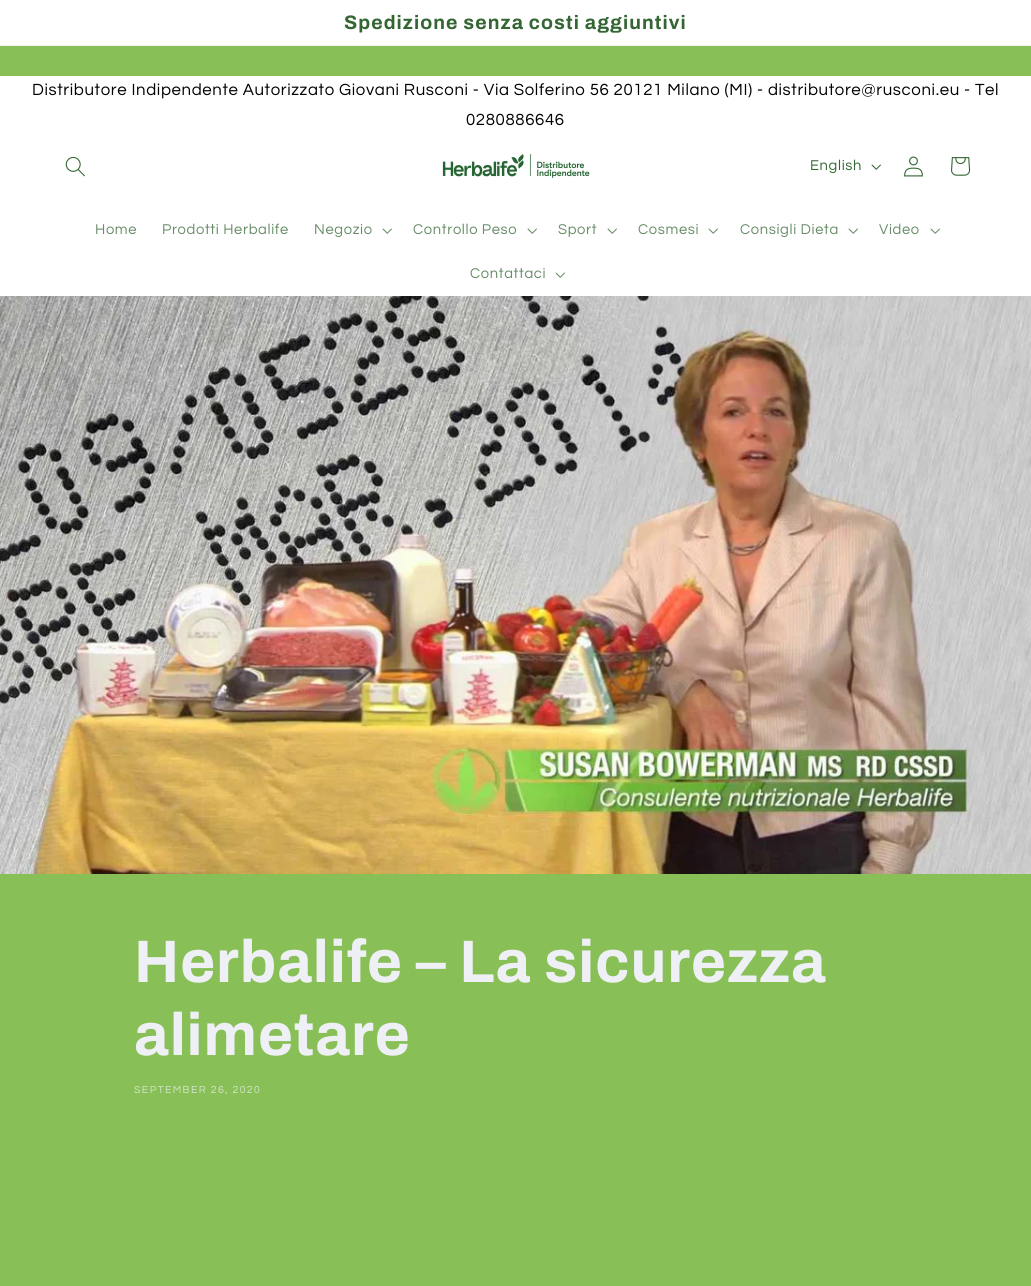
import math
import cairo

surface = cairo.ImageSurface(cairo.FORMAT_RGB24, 1031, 1286)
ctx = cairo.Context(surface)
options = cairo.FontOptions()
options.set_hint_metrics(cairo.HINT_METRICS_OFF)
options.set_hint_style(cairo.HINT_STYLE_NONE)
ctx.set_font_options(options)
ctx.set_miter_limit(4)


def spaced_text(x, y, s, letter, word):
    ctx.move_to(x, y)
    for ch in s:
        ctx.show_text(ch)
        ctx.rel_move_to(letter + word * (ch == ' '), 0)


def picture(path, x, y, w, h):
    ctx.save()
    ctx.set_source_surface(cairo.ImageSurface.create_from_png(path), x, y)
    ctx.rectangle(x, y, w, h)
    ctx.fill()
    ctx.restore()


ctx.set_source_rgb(0.533, 0.753, 0.341)
ctx.paint()
ctx.set_source_rgb(1, 1, 1)
ctx.rectangle(0, 0, 1031, 45)
ctx.fill()
ctx.set_source_rgb(0.937, 0.953, 0.937)
ctx.rectangle(0, 45, 1031, 1)
ctx.fill()
ctx.select_font_face("Archivo", cairo.FONT_SLANT_NORMAL, cairo.FONT_WEIGHT_BOLD)
ctx.set_font_size(19.5)
ctx.set_source_rgb(0.204, 0.4, 0.2)
spaced_text(344, 29, "Spedizione senza costi aggiuntivi", 1.05, 0)
ctx.set_source_rgb(1, 1, 1)
ctx.rectangle(0, 76, 1031, 220)
ctx.fill()
ctx.select_font_face("Questrial")
ctx.set_font_size(16.8)
ctx.set_source_rgb(0, 0, 0)
spaced_text(32, 95, "Distributore Indipendente Autorizzato Giovani Rusconi - Via Solferino 56 20121 Milano (MI) - distributore@rusconi.eu - Tel", 0.63, 0)
spaced_text(466, 125, "0280886646", 0.63, 0)
picture("img1.png", 65, 156, 20, 21)
picture("img2.png", 442, 154, 148, 24)
ctx.set_font_size(14.75)
ctx.set_source_rgb(0.204, 0.4, 0.2)
spaced_text(810, 170, "English", 0.63, 0)
picture("img3.png", 871, 164, 10, 6)
picture("img4.png", 904, 156, 19, 21)
picture("img5.png", 951, 157, 20, 19)
ctx.set_source_rgb(0.404, 0.549, 0.4)
spaced_text(95, 234, "Home", 0.63, 0)
spaced_text(162, 234, "Prodotti Herbalife", 0.63, 0)
spaced_text(314, 234, "Negozio", 0.63, 0)
picture("img6.png", 382, 228, 10, 6)
spaced_text(413, 234, "Controllo Peso", 0.63, 0)
picture("img6.png", 527, 228, 10, 6)
spaced_text(558, 234, "Sport", 0.63, 0)
picture("img6.png", 607, 228, 10, 6)
spaced_text(638, 234, "Cosmesi", 0.63, 0)
picture("img6.png", 708, 228, 10, 6)
spaced_text(740, 234, "Consigli Dieta", 0.63, 0)
picture("img6.png", 848, 228, 10, 6)
spaced_text(879, 234, "Video", 0.63, 0)
picture("img6.png", 930, 228, 10, 6)
spaced_text(470, 278, "Contattaci", 0.63, 0)
picture("img6.png", 555, 272, 10, 6)
picture("img7.png", 0, 296, 1031, 578)
ctx.select_font_face("Archivo", cairo.FONT_SLANT_NORMAL, cairo.FONT_WEIGHT_BOLD)
ctx.set_font_size(60)
ctx.set_source_rgb(0.937, 0.941, 0.961)
spaced_text(134, 982, "Herbalife – La sicurezza", 0.9, 0)
spaced_text(134, 1055, "alimetare", 0.9, 0)
ctx.select_font_face("Questrial")
ctx.set_font_size(10.5)
ctx.set_source_rgb(0.835, 0.894, 0.808)
spaced_text(134, 1093, "SEPTEMBER 26, 2020", 1.4, 0)
surface.write_to_png("page.png")
